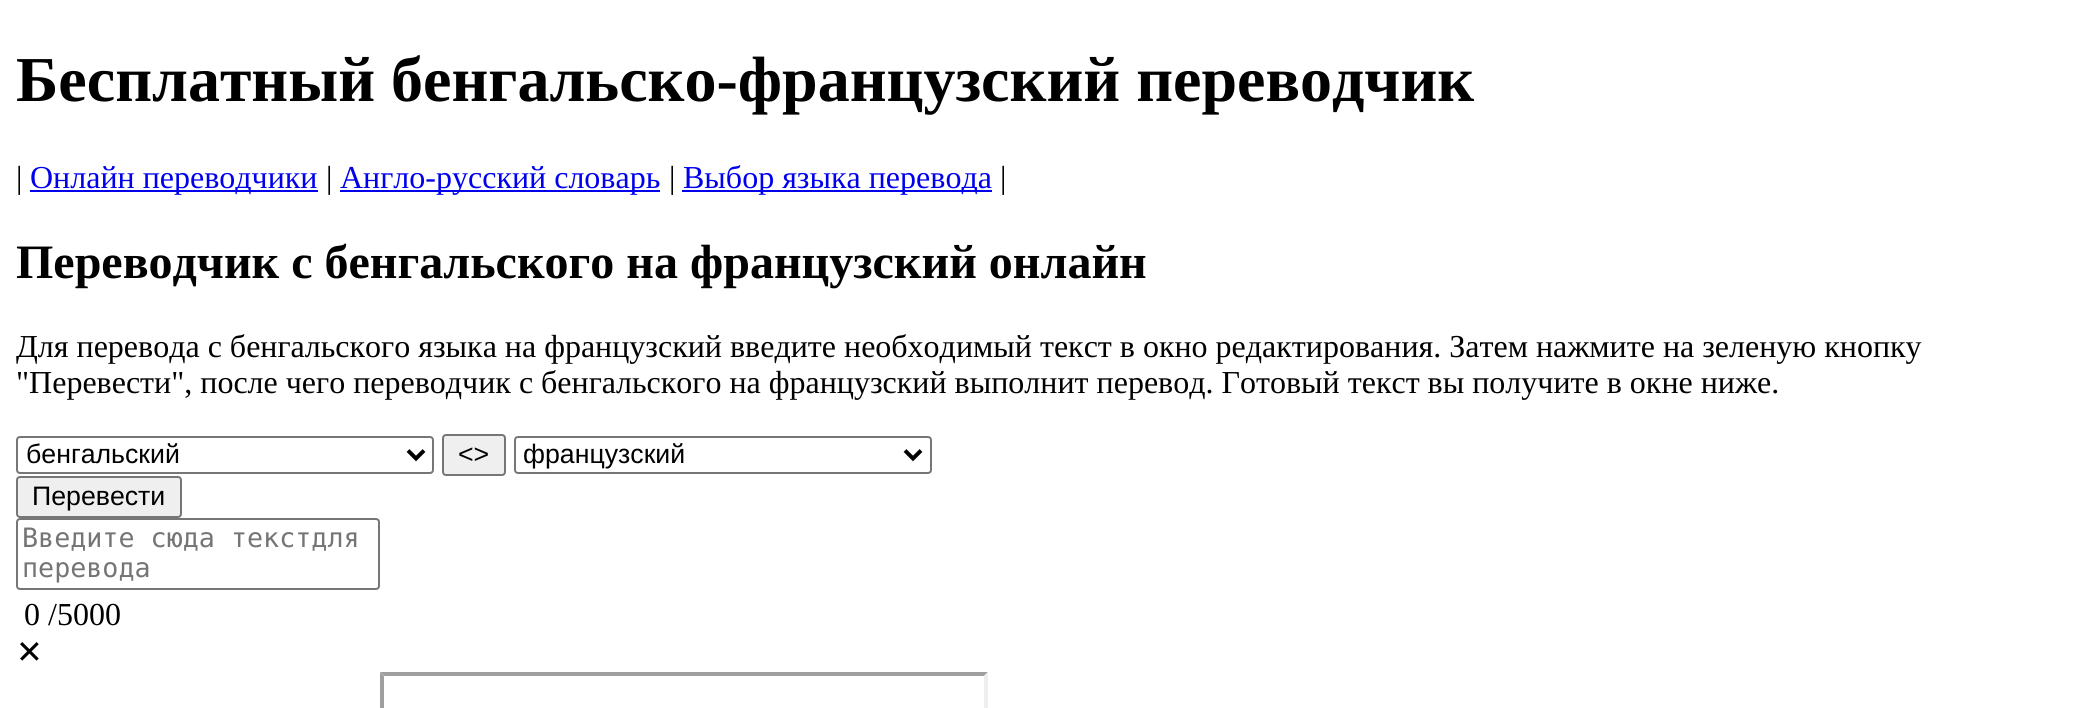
import math
import cairo

surface = cairo.ImageSurface(cairo.FORMAT_RGB24, 2073, 708)
ctx = cairo.Context(surface)
options = cairo.FontOptions()
options.set_hint_metrics(cairo.HINT_METRICS_OFF)
options.set_hint_style(cairo.HINT_STYLE_NONE)
ctx.set_font_options(options)
ctx.set_miter_limit(4)


def round_rect(x, y, w, h, r):
    ctx.new_sub_path()
    for i, (u, v) in enumerate([(x + w - r, y + h - r), (x + r, y + h - r), (x + r, y + r), (x + w - r, y + r)]):
        ctx.arc(u, v, r, i * math.pi / 2, (i + 1) * math.pi / 2)
    ctx.close_path()


ctx.set_source_rgb(1, 1, 1)
ctx.paint()
ctx.select_font_face("Liberation Serif", cairo.FONT_SLANT_NORMAL, cairo.FONT_WEIGHT_BOLD)
ctx.set_font_size(64)
ctx.set_source_rgb(0, 0, 0)
ctx.move_to(16, 101)
ctx.show_text("Бесплатный бенгальско-французский переводчик")
ctx.select_font_face("Liberation Serif")
ctx.set_font_size(32)
ctx.move_to(16, 188)
ctx.show_text("|")
ctx.set_source_rgb(0, 0, 0.933)
ctx.rectangle(30, 190, 288, 2)
ctx.fill()
ctx.move_to(30, 188)
ctx.show_text("Онлайн переводчики")
ctx.set_source_rgb(0, 0, 0)
ctx.move_to(326, 188)
ctx.show_text("|")
ctx.set_source_rgb(0, 0, 0.933)
ctx.rectangle(340, 190, 320, 2)
ctx.fill()
ctx.move_to(340, 188)
ctx.show_text("Англо-русский словарь")
ctx.set_source_rgb(0, 0, 0)
ctx.move_to(669, 188)
ctx.show_text("|")
ctx.set_source_rgb(0, 0, 0.933)
ctx.rectangle(682, 190, 310, 2)
ctx.fill()
ctx.move_to(683, 188)
ctx.show_text("Выбор языка перевода")
ctx.set_source_rgb(0, 0, 0)
ctx.move_to(1000, 188)
ctx.show_text("|")
ctx.select_font_face("Liberation Serif", cairo.FONT_SLANT_NORMAL, cairo.FONT_WEIGHT_BOLD)
ctx.set_font_size(48)
ctx.move_to(16, 278)
ctx.show_text("Переводчик с бенгальского на французский онлайн")
ctx.select_font_face("Liberation Serif")
ctx.set_font_size(32)
ctx.move_to(16, 357)
ctx.show_text("Для перевода с бенгальского языка на французский введите необходимый текст в окно редактирования. Затем нажмите на зеленую кнопку")
ctx.move_to(16, 393)
ctx.show_text("\"Перевести\", после чего переводчик с бенгальского на французский выполнит перевод. Готовый текст вы получите в окне ниже.")
round_rect(17, 437, 416, 36, 3)
ctx.set_source_rgb(0.463, 0.463, 0.463)
ctx.stroke()
ctx.new_path()
ctx.move_to(408, 450.5)
ctx.line_to(416, 458.5)
ctx.line_to(424, 450.5)
ctx.set_source_rgb(0, 0, 0)
ctx.set_line_width(4)
ctx.stroke()
ctx.select_font_face("Liberation Sans")
ctx.set_font_size(26.7)
ctx.move_to(26, 463)
ctx.show_text("бенгальский")
ctx.set_source_rgb(0.937, 0.937, 0.937)
round_rect(443, 435, 62, 40, 3)
ctx.fill_preserve()
ctx.set_source_rgb(0.463, 0.463, 0.463)
ctx.set_line_width(2)
ctx.stroke()
ctx.set_source_rgb(0, 0, 0)
ctx.move_to(458, 463)
ctx.show_text("<>")
round_rect(515, 437, 416, 36, 3)
ctx.set_source_rgb(0.463, 0.463, 0.463)
ctx.stroke()
ctx.new_path()
ctx.move_to(905, 450.5)
ctx.line_to(913, 458.5)
ctx.line_to(921, 450.5)
ctx.set_source_rgb(0, 0, 0)
ctx.set_line_width(4)
ctx.stroke()
ctx.move_to(523, 463)
ctx.show_text("французский")
ctx.set_source_rgb(0.937, 0.937, 0.937)
round_rect(17, 477, 164, 40, 3)
ctx.fill_preserve()
ctx.set_source_rgb(0.463, 0.463, 0.463)
ctx.set_line_width(2)
ctx.stroke()
ctx.set_source_rgb(0, 0, 0)
ctx.move_to(32, 505)
ctx.show_text("Перевести")
round_rect(17, 519, 362, 70, 3)
ctx.set_source_rgb(0.463, 0.463, 0.463)
ctx.stroke()
ctx.select_font_face("DejaVu Sans Mono")
ctx.set_source_rgb(0.459, 0.459, 0.459)
ctx.move_to(22, 547)
ctx.show_text("Введите сюда текстдля")
ctx.move_to(22, 577)
ctx.show_text("перевода")
ctx.select_font_face("Liberation Serif")
ctx.set_font_size(32)
ctx.set_source_rgb(0, 0, 0)
ctx.move_to(24, 625)
ctx.show_text("0 /5000")
ctx.select_font_face("DejaVu Sans")
ctx.move_to(16, 663)
ctx.show_text("✕")
ctx.set_source_rgb(0.624, 0.624, 0.624)
ctx.new_path()
ctx.move_to(380, 672)
ctx.line_to(988, 672)
ctx.line_to(984, 676)
ctx.line_to(384, 676)
ctx.close_path()
ctx.fill()
ctx.new_path()
ctx.move_to(380, 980)
ctx.line_to(380, 672)
ctx.line_to(384, 676)
ctx.line_to(384, 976)
ctx.close_path()
ctx.fill()
ctx.set_source_rgb(0.933, 0.933, 0.933)
ctx.new_path()
ctx.move_to(988, 672)
ctx.line_to(988, 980)
ctx.line_to(984, 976)
ctx.line_to(984, 676)
ctx.close_path()
ctx.fill()
surface.write_to_png("page.png")
